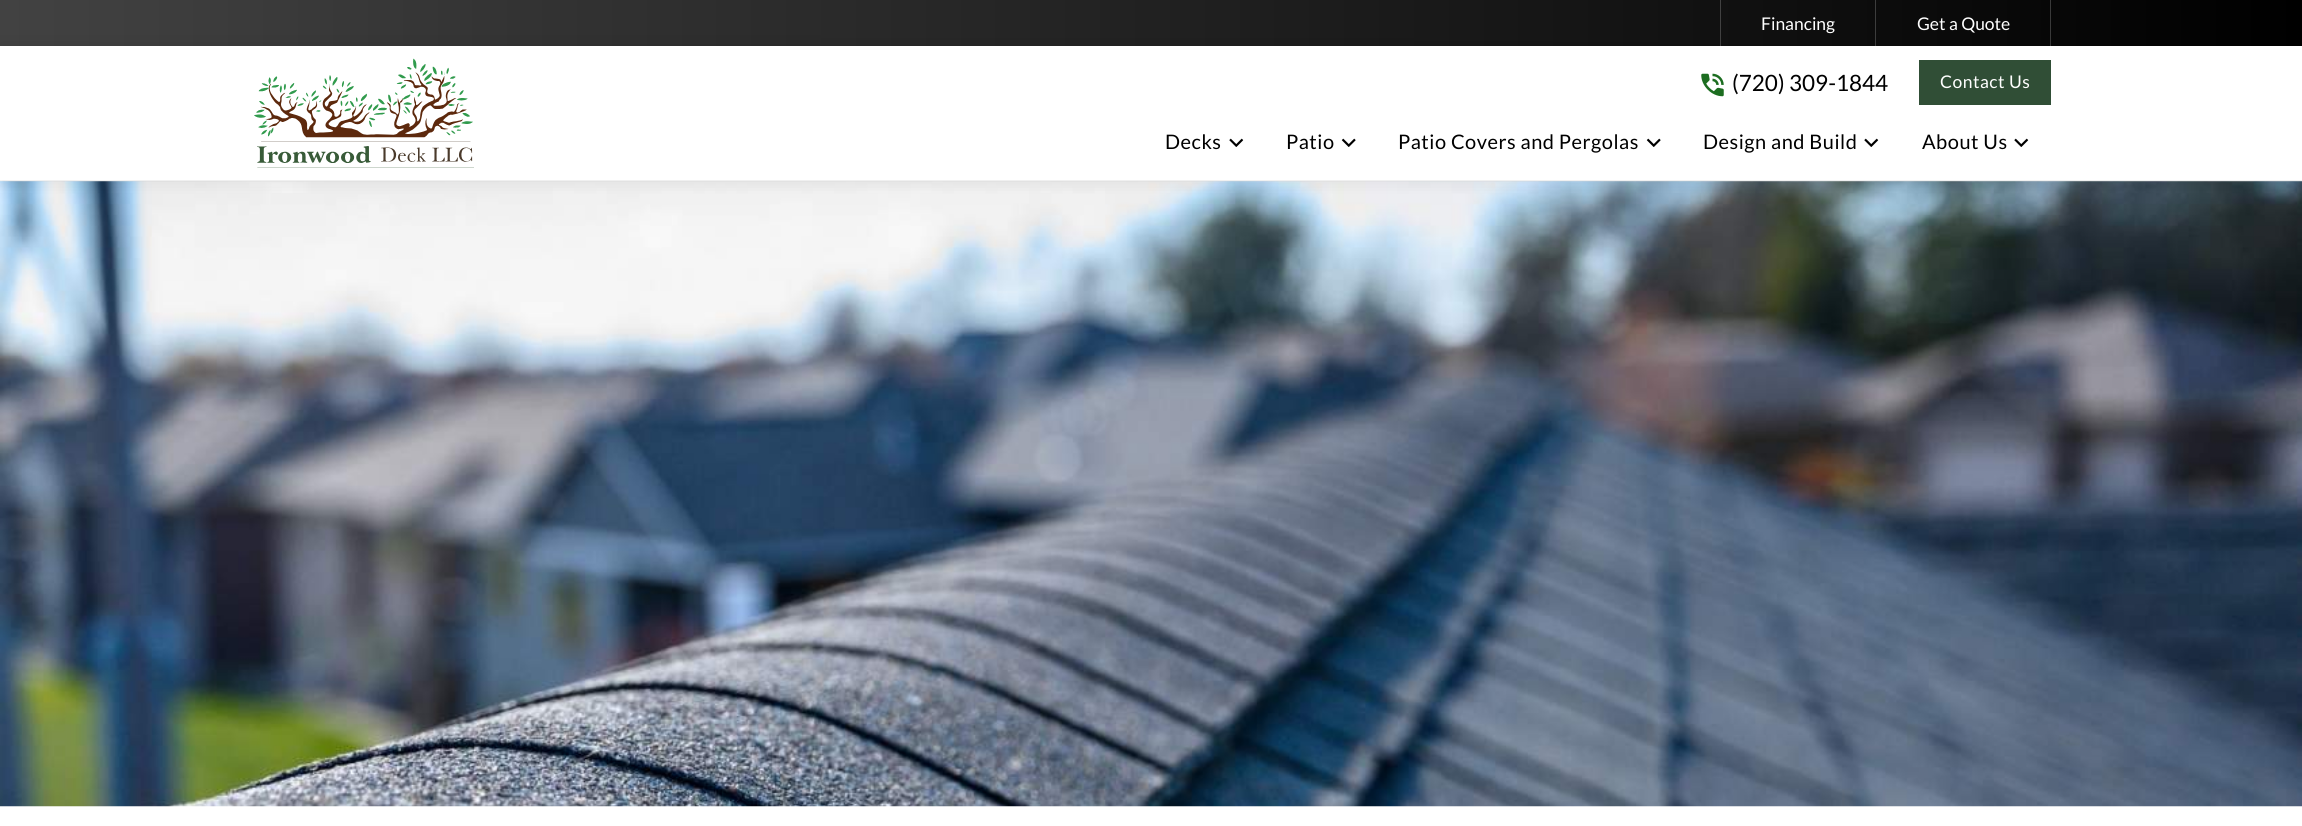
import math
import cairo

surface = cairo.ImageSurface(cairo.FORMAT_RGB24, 2302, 826)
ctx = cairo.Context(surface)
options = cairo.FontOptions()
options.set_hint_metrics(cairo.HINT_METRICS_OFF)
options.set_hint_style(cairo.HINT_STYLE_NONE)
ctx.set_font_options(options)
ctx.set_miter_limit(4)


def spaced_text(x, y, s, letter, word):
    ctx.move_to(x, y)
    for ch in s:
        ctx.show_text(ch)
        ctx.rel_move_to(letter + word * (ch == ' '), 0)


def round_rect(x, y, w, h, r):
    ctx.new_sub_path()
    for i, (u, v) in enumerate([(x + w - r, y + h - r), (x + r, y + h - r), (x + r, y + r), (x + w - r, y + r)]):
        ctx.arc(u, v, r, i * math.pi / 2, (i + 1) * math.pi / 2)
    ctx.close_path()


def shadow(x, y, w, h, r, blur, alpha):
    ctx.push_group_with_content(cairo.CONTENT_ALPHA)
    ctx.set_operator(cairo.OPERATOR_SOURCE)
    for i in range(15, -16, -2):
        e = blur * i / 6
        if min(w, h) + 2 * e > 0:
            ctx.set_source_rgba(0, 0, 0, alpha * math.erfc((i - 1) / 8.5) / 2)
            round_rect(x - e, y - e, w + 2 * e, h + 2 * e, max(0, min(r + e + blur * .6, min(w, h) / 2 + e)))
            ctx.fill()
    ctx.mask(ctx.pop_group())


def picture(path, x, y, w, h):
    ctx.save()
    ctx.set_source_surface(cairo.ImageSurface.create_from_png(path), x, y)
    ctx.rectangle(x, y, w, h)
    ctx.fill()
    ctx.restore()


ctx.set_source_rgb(1, 1, 1)
ctx.paint()
ctx.set_source_rgb(0, 0, 0)
shadow(0, 5, 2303, 181, 0, 10.5, 0.2)
ctx.set_source_rgb(0.98, 0.98, 0.98)
ctx.rectangle(0, 180, 2302, 1)
ctx.fill()
gradient = cairo.LinearGradient(0, 23, 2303, 23)
gradient.add_color_stop_rgba(0, 0.259, 0.259, 0.259, 1)
gradient.add_color_stop_rgba(1, 0, 0, 0, 1)
ctx.set_source(gradient)
ctx.rectangle(0, 0, 2302, 46)
ctx.fill()
ctx.set_source_rgb(0.224, 0.224, 0.224)
ctx.rectangle(2050, 0, 1, 46)
ctx.fill()
ctx.set_source_rgb(0.255, 0.255, 0.255)
ctx.rectangle(1720, 0, 1, 46)
ctx.fill()
ctx.select_font_face("Lato")
ctx.set_font_size(17.5)
ctx.set_source_rgb(1, 1, 1)
ctx.move_to(1761, 30)
ctx.show_text("Financing")
ctx.set_source_rgb(0.239, 0.239, 0.239)
ctx.rectangle(1875, 0, 1, 46)
ctx.fill()
ctx.set_source_rgb(1, 1, 1)
ctx.move_to(1917, 30)
ctx.show_text("Get a Quote")
picture("img5.png", 0, 181, 2302, 626)
ctx.set_source_rgb(0, 0, 0)
shadow(0, 46, 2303, 134, 0, 9.5, 0.08)
ctx.set_source_rgb(1, 1, 1)
ctx.rectangle(0, 46, 2302, 134)
ctx.fill()
picture("img1.png", 254, 58, 220, 110)
picture("img2.png", 1701, 73, 23, 24)
ctx.set_font_size(22.5)
ctx.set_source_rgb(0, 0, 0)
ctx.move_to(1732, 91)
ctx.show_text("(720) 309-1844")
ctx.set_source_rgb(0.188, 0.306, 0.212)
ctx.rectangle(1919, 60, 132, 45)
ctx.fill()
ctx.set_font_size(17.5)
ctx.set_source_rgb(1, 1, 1)
spaced_text(1940, 88, "Contact Us", 0.5, 0)
ctx.set_font_size(20)
ctx.set_source_rgb(0, 0, 0)
spaced_text(1165, 149, "Decks", 0.5, 0)
picture("img3.png", 1229, 138, 15, 9)
spaced_text(1286, 149, "Patio", 0.5, 0)
picture("img4.png", 1341, 138, 15, 9)
spaced_text(1398, 149, "Patio Covers and Pergolas", 0.5, 0)
picture("img4.png", 1646, 138, 15, 9)
spaced_text(1703, 149, "Design and Build", 0.5, 0)
picture("img3.png", 1864, 138, 15, 9)
spaced_text(1922, 149, "About Us", 0.5, 0)
picture("img3.png", 2014, 138, 15, 9)
surface.write_to_png("page.png")
